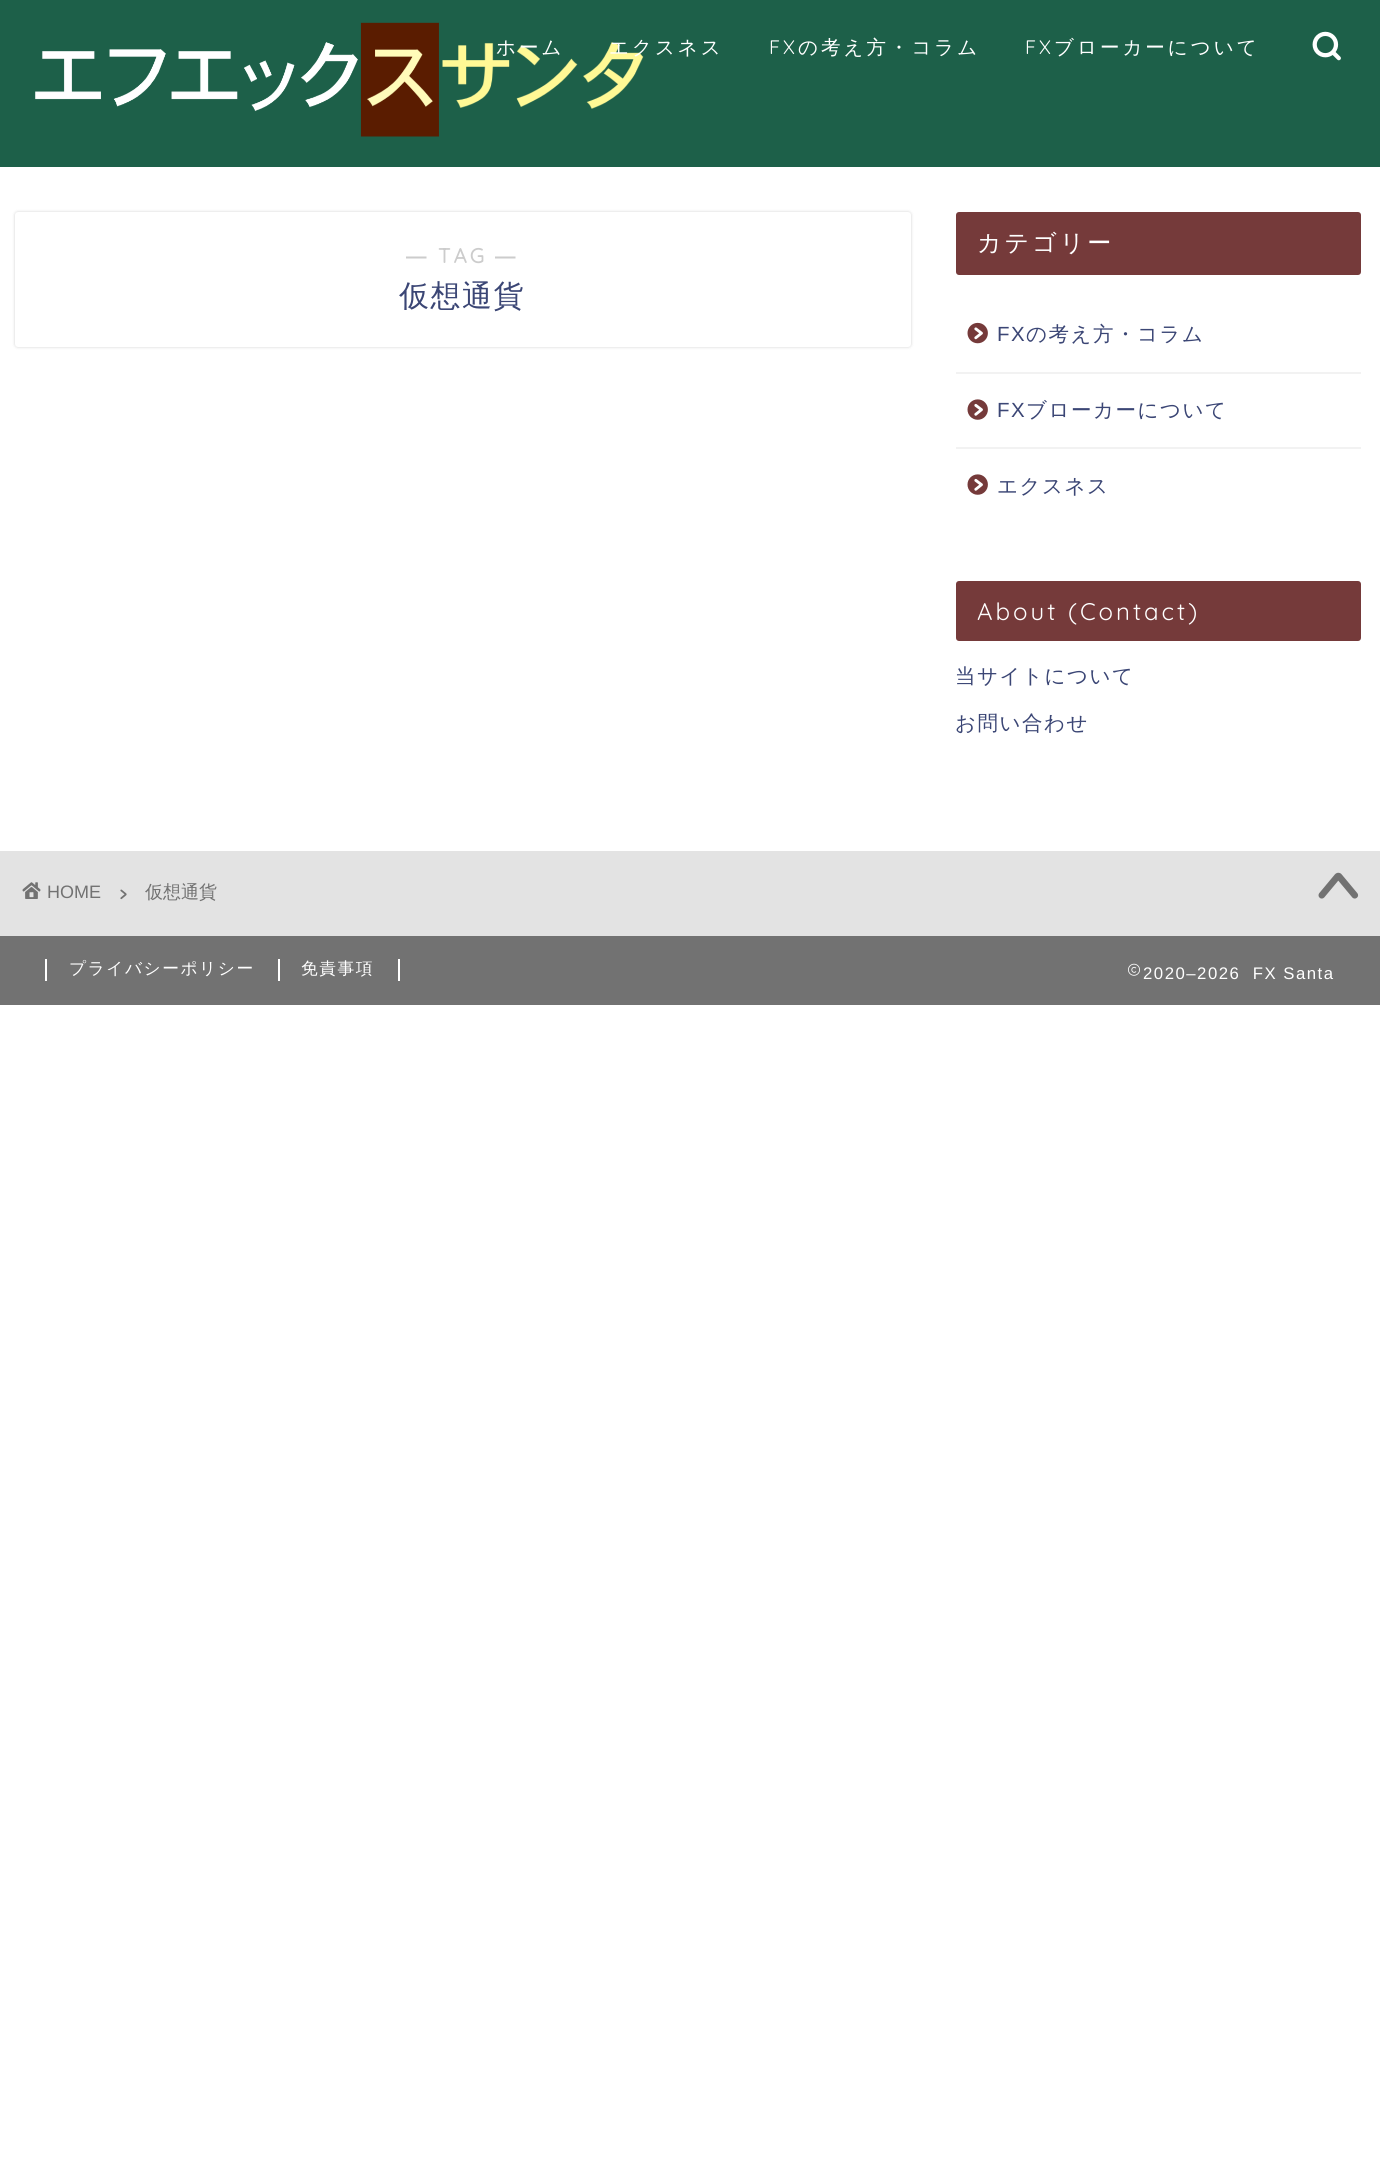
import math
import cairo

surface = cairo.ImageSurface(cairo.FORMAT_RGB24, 1380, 2181)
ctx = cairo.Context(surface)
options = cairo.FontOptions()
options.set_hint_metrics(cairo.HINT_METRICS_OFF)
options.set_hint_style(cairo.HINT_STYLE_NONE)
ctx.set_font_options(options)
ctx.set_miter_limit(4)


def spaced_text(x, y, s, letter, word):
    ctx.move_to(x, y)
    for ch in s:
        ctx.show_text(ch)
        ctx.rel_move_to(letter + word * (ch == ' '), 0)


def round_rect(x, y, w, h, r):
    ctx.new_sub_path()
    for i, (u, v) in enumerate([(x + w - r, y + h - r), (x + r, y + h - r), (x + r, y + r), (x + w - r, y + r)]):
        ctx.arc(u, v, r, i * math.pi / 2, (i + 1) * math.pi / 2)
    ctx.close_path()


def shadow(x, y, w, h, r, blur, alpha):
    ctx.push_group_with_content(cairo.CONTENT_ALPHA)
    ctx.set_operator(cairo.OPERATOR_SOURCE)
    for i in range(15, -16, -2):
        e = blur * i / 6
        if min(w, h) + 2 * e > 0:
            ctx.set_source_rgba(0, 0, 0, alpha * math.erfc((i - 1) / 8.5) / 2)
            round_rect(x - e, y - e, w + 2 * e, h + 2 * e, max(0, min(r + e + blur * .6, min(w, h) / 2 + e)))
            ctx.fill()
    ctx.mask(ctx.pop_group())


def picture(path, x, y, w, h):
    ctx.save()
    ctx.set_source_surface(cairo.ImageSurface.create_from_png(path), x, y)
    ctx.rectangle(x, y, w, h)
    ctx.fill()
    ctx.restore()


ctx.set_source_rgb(1, 1, 1)
ctx.paint()
ctx.set_source_rgb(0.114, 0.376, 0.286)
ctx.rectangle(0, 0, 1380, 167)
ctx.fill()
picture("img1.png", 35, 22, 609, 115)
ctx.select_font_face("WenQuanYi Zen Hei Medium")
ctx.set_font_size(19.5)
ctx.set_source_rgb(1, 1, 1)
spaced_text(496, 54, "ホーム", 3, 0)
spaced_text(609, 54, "エクスネス", 3, 0)
ctx.select_font_face("Quicksand Light")
spaced_text(769, 54, "FX", 3, 0)
ctx.select_font_face("WenQuanYi Zen Hei Medium")
spaced_text(798, 54, "の考え方・コラム", 3, 0)
ctx.select_font_face("Quicksand Light")
spaced_text(1025, 54, "FX", 3, 0)
ctx.select_font_face("WenQuanYi Zen Hei Medium")
spaced_text(1054, 54, "ブローカーについて", 3, 0)
picture("img2.png", 1312, 31, 29, 30)
ctx.set_source_rgb(0, 0, 0)
shadow(15, 212, 896, 135, 3, 1.5, 0.18)
ctx.set_source_rgb(1, 1, 1)
round_rect(15, 212, 896, 135, 3)
ctx.fill()
ctx.select_font_face("Liberation Sans", cairo.FONT_SLANT_NORMAL, cairo.FONT_WEIGHT_BOLD)
ctx.set_font_size(20.5)
ctx.set_source_rgb(0.8, 0.8, 0.8)
spaced_text(406, 263, "―", 3, 0)
ctx.select_font_face("Quicksand", cairo.FONT_SLANT_NORMAL, cairo.FONT_WEIGHT_BOLD)
spaced_text(438, 263, "TAG", 3, 0)
ctx.select_font_face("Liberation Sans", cairo.FONT_SLANT_NORMAL, cairo.FONT_WEIGHT_BOLD)
spaced_text(495, 263, "―", 3, 0)
ctx.select_font_face("WenQuanYi Zen Hei Medium")
ctx.set_font_size(30)
ctx.set_source_rgb(0.231, 0.275, 0.459)
spaced_text(399, 306, "仮想通貨", 1.5, 0)
ctx.set_source_rgb(0.459, 0.227, 0.227)
round_rect(956, 212, 405, 63, 3)
ctx.fill()
ctx.set_font_size(24)
ctx.set_source_rgb(1, 1, 1)
spaced_text(977, 251, "カテゴリー", 3, 0)
ctx.set_source_rgb(0.949, 0.949, 0.949)
ctx.rectangle(956, 372, 405, 2)
ctx.fill()
picture("img3.png", 967, 322, 21, 22)
ctx.select_font_face("Liberation Sans")
ctx.set_font_size(20.5)
ctx.set_source_rgb(0.231, 0.275, 0.459)
spaced_text(997, 341, "FX", 1.5, 0)
ctx.select_font_face("WenQuanYi Zen Hei Medium")
spaced_text(1026, 341, "の考え方・コラム", 1.5, 0)
ctx.set_source_rgb(0.949, 0.949, 0.949)
ctx.rectangle(956, 447, 405, 2)
ctx.fill()
picture("img4.png", 967, 399, 21, 21)
ctx.select_font_face("Liberation Sans")
ctx.set_source_rgb(0.231, 0.275, 0.459)
spaced_text(997, 417, "FX", 1.5, 0)
ctx.select_font_face("WenQuanYi Zen Hei Medium")
spaced_text(1026, 417, "ブローカーについて", 1.5, 0)
picture("img4.png", 967, 474, 21, 21)
spaced_text(997, 493, "エクスネス", 1.5, 0)
ctx.set_source_rgb(0.459, 0.227, 0.227)
round_rect(956, 581, 405, 60, 3)
ctx.fill()
ctx.select_font_face("Quicksand Light")
ctx.set_font_size(24)
ctx.set_source_rgb(1, 1, 1)
spaced_text(977, 620, "About (Contact)", 3, 0)
ctx.select_font_face("WenQuanYi Zen Hei Medium")
ctx.set_font_size(20.5)
ctx.set_source_rgb(0.231, 0.275, 0.459)
spaced_text(955, 683, "当サイトについて", 1.5, 0)
spaced_text(955, 730, "お問い合わせ", 1.5, 0)
ctx.set_source_rgb(0.89, 0.89, 0.89)
ctx.rectangle(0, 851, 1380, 85)
ctx.fill()
picture("img5.png", 22, 882, 19, 17)
ctx.select_font_face("Liberation Sans")
ctx.set_font_size(18)
ctx.set_source_rgb(0.447, 0.447, 0.447)
ctx.move_to(47, 898)
ctx.show_text("HOME")
picture("img6.png", 120, 889, 7, 11)
ctx.select_font_face("WenQuanYi Zen Hei Medium")
ctx.move_to(145, 898)
ctx.show_text("仮想通貨")
picture("img7.png", 1318, 872, 41, 27)
ctx.rectangle(0, 936, 1380, 69)
ctx.fill()
ctx.set_source_rgb(1, 1, 1)
ctx.rectangle(278, 959, 2, 22)
ctx.fill()
ctx.rectangle(45, 959, 2, 22)
ctx.fill()
ctx.set_font_size(16.75)
spaced_text(69, 974, "プライバシーポリシー", 1.5, 0)
ctx.rectangle(398, 959, 2, 22)
ctx.fill()
spaced_text(301, 974, "免責事項", 1.5, 0)
picture("img8.png", 1128, 963, 12, 13)
ctx.select_font_face("Liberation Sans")
spaced_text(1143, 979, "2020–2026  FX Santa", 1.5, 0)
surface.write_to_png("page.png")
